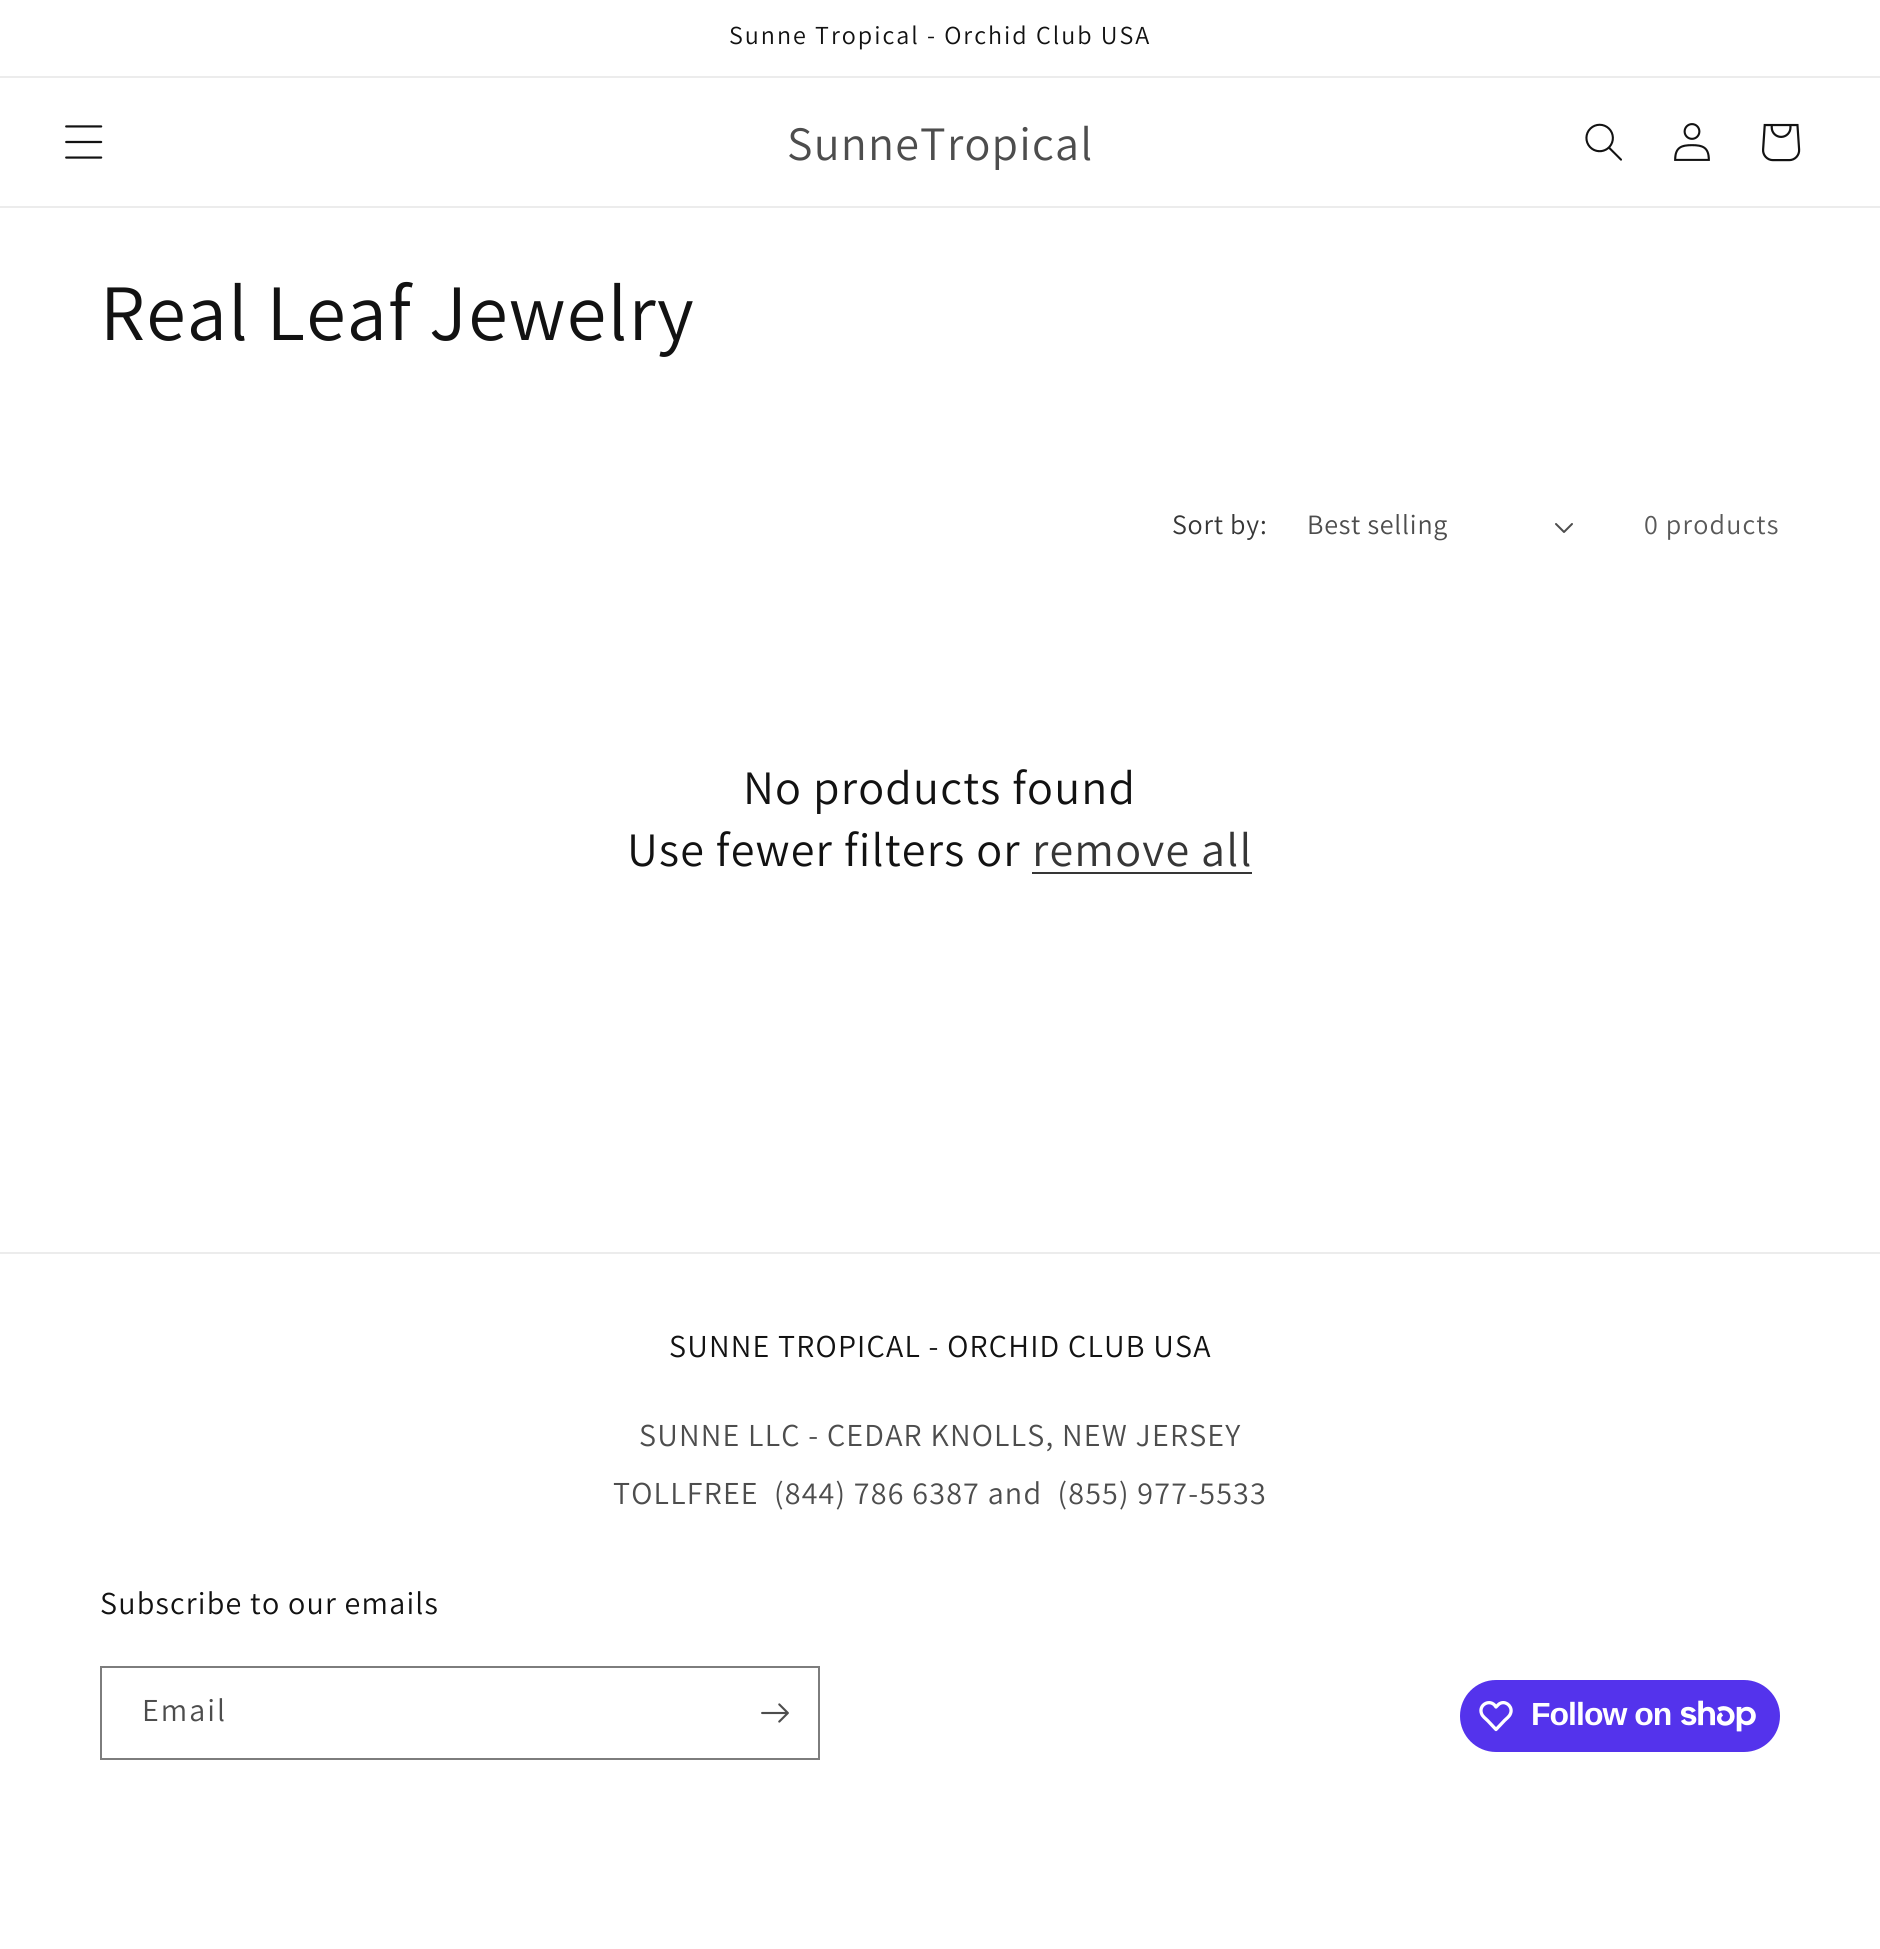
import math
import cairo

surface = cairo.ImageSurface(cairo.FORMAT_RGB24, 1880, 1949)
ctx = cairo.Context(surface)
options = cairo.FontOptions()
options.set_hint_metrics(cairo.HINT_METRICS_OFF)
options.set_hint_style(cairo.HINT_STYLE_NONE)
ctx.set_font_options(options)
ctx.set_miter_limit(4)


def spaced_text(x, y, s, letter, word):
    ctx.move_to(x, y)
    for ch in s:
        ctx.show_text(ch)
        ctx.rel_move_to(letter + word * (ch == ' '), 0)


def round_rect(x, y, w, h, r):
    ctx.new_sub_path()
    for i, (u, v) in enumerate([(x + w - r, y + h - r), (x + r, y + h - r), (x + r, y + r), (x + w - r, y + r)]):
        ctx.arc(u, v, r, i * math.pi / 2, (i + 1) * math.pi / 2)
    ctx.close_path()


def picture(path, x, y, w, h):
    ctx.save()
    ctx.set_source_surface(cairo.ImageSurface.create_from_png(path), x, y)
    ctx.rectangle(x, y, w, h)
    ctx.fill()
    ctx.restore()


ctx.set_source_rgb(1, 1, 1)
ctx.paint()
ctx.set_source_rgb(0.925, 0.925, 0.925)
ctx.rectangle(0, 76, 1880, 2)
ctx.fill()
ctx.select_font_face("Assistant")
ctx.set_font_size(26)
ctx.set_source_rgb(0.071, 0.071, 0.071)
spaced_text(729, 44, "Sunne Tropical - Orchid Club USA", 2, 0)
ctx.set_source_rgb(0.925, 0.925, 0.925)
ctx.rectangle(0, 206, 1880, 2)
ctx.fill()
picture("img1.png", 65, 125, 38, 34)
ctx.set_font_size(48)
ctx.set_source_rgb(0.302, 0.302, 0.302)
spaced_text(787, 160, "SunneTropical", 1.2, 0)
picture("img2.png", 1585, 123, 37, 38)
picture("img3.png", 1674, 123, 36, 38)
picture("img4.png", 1762, 123, 39, 39)
ctx.set_font_size(80)
ctx.set_source_rgb(0.071, 0.071, 0.071)
spaced_text(100, 340, "Real Leaf Jewelry", 1.2, 0)
ctx.set_font_size(28)
ctx.set_source_rgb(0.212, 0.212, 0.212)
spaced_text(1172, 534, "Sort by:", 0.75, 0)
ctx.set_source_rgb(0.302, 0.302, 0.302)
spaced_text(1307, 534, "Best selling", 0.75, 0)
picture("img5.png", 1555, 523, 18, 10)
ctx.set_source_rgb(0.349, 0.349, 0.349)
spaced_text(1644, 534, "0 products", 1.2, 0)
ctx.set_font_size(48)
ctx.set_source_rgb(0.071, 0.071, 0.071)
spaced_text(743, 804, "No products found", 1.2, 0)
spaced_text(627, 866, "Use fewer filters or", 1.2, 0)
ctx.set_source_rgb(0.212, 0.212, 0.212)
spaced_text(1032, 866, "remove all", 1.2, 0)
ctx.rectangle(1032, 872, 220, 2)
ctx.fill()
ctx.set_source_rgb(0.925, 0.925, 0.925)
ctx.rectangle(0, 1252, 1880, 2)
ctx.fill()
ctx.set_font_size(32)
ctx.set_source_rgb(0.071, 0.071, 0.071)
spaced_text(669, 1357, "SUNNE TROPICAL - ORCHID CLUB USA", 1.2, 0)
ctx.set_source_rgb(0.302, 0.302, 0.302)
spaced_text(639, 1446, "SUNNE LLC - CEDAR KNOLLS, NEW JERSEY", 1.2, 0)
spaced_text(613, 1504, "TOLLFREE  (844) 786 6387 and  (855) 977-5533", 1.2, 0)
ctx.set_source_rgb(0.071, 0.071, 0.071)
spaced_text(100, 1614, "Subscribe to our emails", 1.2, 0)
ctx.rectangle(101, 1667, 718, 92)
ctx.set_source_rgb(0.49, 0.49, 0.49)
ctx.stroke()
ctx.set_source_rgb(0.302, 0.302, 0.302)
spaced_text(142, 1721, "Email", 2, 0)
picture("img6.png", 761, 1703, 28, 20)
ctx.set_source_rgb(0.329, 0.2, 0.922)
round_rect(1460, 1680, 320, 72, 36)
ctx.fill()
ctx.new_path()
ctx.move_to(1494.5, 1705)
ctx.line_to(1496, 1707)
ctx.curve_to(1497.5, 1705.5, 1499, 1703.5, 1501, 1703)
ctx.curve_to(1507, 1701, 1513, 1707.5, 1510.5, 1713.5)
ctx.curve_to(1509.5, 1716.5, 1506.5, 1718.5, 1504.5, 1720.5)
ctx.line_to(1496, 1729.5)
ctx.line_to(1487.5, 1720.5)
ctx.curve_to(1485.5, 1718.5, 1482.5, 1716.5, 1481.5, 1713.5)
ctx.curve_to(1478.5, 1705.5, 1488.5, 1699, 1494.5, 1705)
ctx.close_path()
ctx.set_source_rgb(1, 1, 1)
ctx.set_line_width(3.3)
ctx.set_line_join(cairo.LINE_JOIN_ROUND)
ctx.stroke()
ctx.select_font_face("Liberation Sans", cairo.FONT_SLANT_NORMAL, cairo.FONT_WEIGHT_BOLD)
spaced_text(1531, 1725, "Follow on", -1, 0)
picture("img7.png", 1681, 1700, 75, 32)
surface.write_to_png("page.png")
